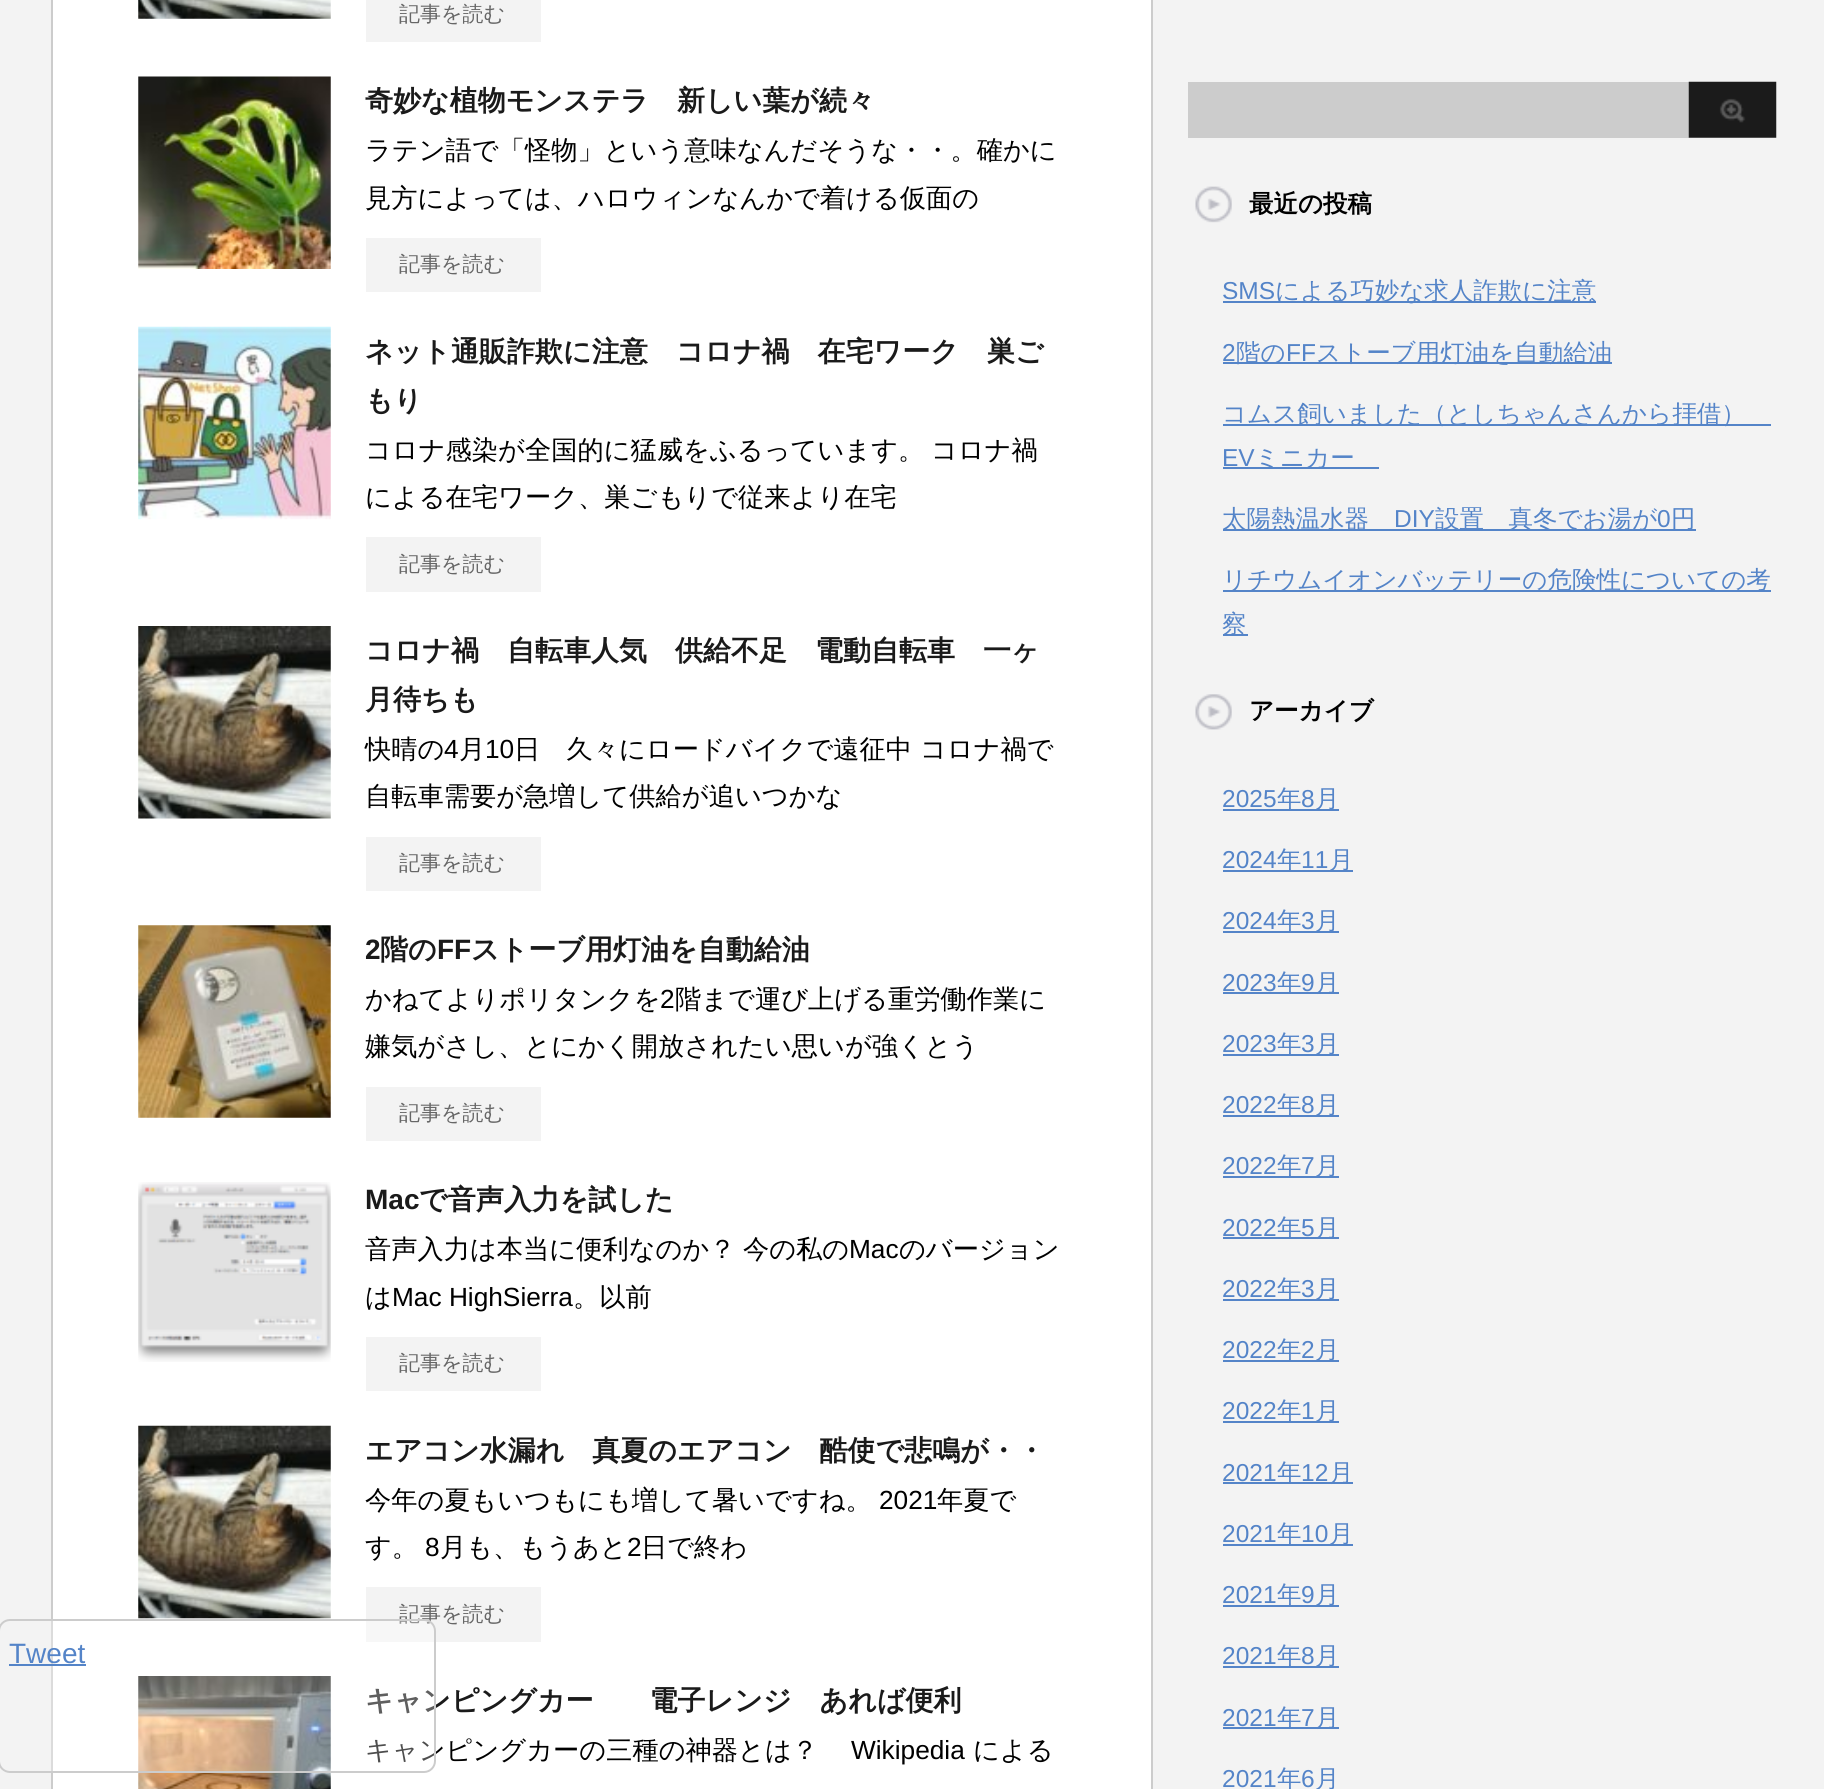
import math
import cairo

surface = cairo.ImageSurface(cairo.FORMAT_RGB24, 1824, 1789)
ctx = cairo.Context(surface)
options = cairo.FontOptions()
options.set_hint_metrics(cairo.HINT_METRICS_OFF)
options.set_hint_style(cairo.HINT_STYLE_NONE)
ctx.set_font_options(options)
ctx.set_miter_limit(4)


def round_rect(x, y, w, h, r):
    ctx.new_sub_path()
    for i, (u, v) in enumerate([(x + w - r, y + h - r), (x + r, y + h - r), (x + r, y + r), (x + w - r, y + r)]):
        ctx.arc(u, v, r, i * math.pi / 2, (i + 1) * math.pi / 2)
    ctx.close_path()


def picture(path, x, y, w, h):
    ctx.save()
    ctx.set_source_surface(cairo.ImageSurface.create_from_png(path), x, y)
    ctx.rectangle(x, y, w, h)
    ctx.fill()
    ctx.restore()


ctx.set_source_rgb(0.953, 0.953, 0.953)
ctx.paint()
ctx.set_source_rgb(1, 1, 1)
ctx.rectangle(52, -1, 1100, 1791)
ctx.fill_preserve()
ctx.set_source_rgb(0.8, 0.8, 0.8)
ctx.stroke()
ctx.set_source_rgb(0.953, 0.953, 0.953)
ctx.rectangle(366, 1587, 175, 55)
ctx.fill()
ctx.select_font_face("WenQuanYi Zen Hei Medium")
ctx.set_font_size(21)
ctx.set_source_rgb(0.4, 0.4, 0.4)
ctx.move_to(399, 1621)
ctx.show_text("記事を読む")
picture("img9.png", 138, 1676, 193, 113)
ctx.select_font_face("WenQuanYi Zen Hei", cairo.FONT_SLANT_NORMAL, cairo.FONT_WEIGHT_BOLD)
ctx.set_font_size(28)
ctx.set_source_rgb(0.102, 0.102, 0.102)
ctx.move_to(365, 1710)
ctx.show_text("キャンピングカー　　電子レンジ　あれば便利")
ctx.select_font_face("WenQuanYi Zen Hei Medium")
ctx.set_font_size(26.25)
ctx.set_source_rgb(0, 0, 0)
ctx.move_to(365, 1759)
ctx.show_text("キャンピングカーの三種の神器とは？")
picture("img1.png", 51, 1619, 385, 154)
round_rect(-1, 1620, 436, 152, 11)
ctx.set_source_rgb(0.8, 0.8, 0.8)
ctx.stroke()
ctx.select_font_face("Liberation Sans")
ctx.set_font_size(28)
ctx.set_source_rgb(0.329, 0.518, 0.784)
ctx.move_to(9, 1663)
ctx.show_text("Tweet")
ctx.rectangle(9, 1664, 77, 2)
ctx.fill()
picture("img2.png", 138, 0, 193, 19)
ctx.set_source_rgb(0.953, 0.953, 0.953)
ctx.rectangle(366, 0, 175, 42)
ctx.fill()
ctx.select_font_face("WenQuanYi Zen Hei Medium")
ctx.set_font_size(21)
ctx.set_source_rgb(0.4, 0.4, 0.4)
ctx.move_to(399, 21)
ctx.show_text("記事を読む")
picture("img3.png", 138, 76, 193, 193)
ctx.select_font_face("WenQuanYi Zen Hei", cairo.FONT_SLANT_NORMAL, cairo.FONT_WEIGHT_BOLD)
ctx.set_font_size(28)
ctx.set_source_rgb(0.102, 0.102, 0.102)
ctx.move_to(365, 110)
ctx.show_text("奇妙な植物モンステラ　新しい葉が続々")
ctx.select_font_face("WenQuanYi Zen Hei Medium")
ctx.set_font_size(26.25)
ctx.set_source_rgb(0, 0, 0)
ctx.move_to(365, 159)
ctx.show_text("ラテン語で「怪物」という意味なんだそうな・・。確かに")
ctx.move_to(365, 207)
ctx.show_text("見方によっては、ハロウィンなんかで着ける仮面の")
ctx.set_source_rgb(0.953, 0.953, 0.953)
ctx.rectangle(366, 238, 175, 54)
ctx.fill()
ctx.set_font_size(21)
ctx.set_source_rgb(0.4, 0.4, 0.4)
ctx.move_to(399, 271)
ctx.show_text("記事を読む")
picture("img4.png", 138, 326, 193, 194)
ctx.select_font_face("WenQuanYi Zen Hei", cairo.FONT_SLANT_NORMAL, cairo.FONT_WEIGHT_BOLD)
ctx.set_font_size(28)
ctx.set_source_rgb(0.102, 0.102, 0.102)
ctx.move_to(365, 361)
ctx.show_text("ネット通販詐欺に注意　コロナ禍　在宅ワーク　巣ご")
ctx.move_to(365, 410)
ctx.show_text("もり")
ctx.select_font_face("WenQuanYi Zen Hei Medium")
ctx.set_font_size(26.25)
ctx.set_source_rgb(0, 0, 0)
ctx.move_to(365, 459)
ctx.show_text("コロナ感染が全国的に猛威をふるっています。")
ctx.move_to(931, 459)
ctx.show_text("コロナ禍")
ctx.move_to(365, 506)
ctx.show_text("による在宅ワーク、巣ごもりで従来より在宅")
ctx.set_source_rgb(0.953, 0.953, 0.953)
ctx.rectangle(366, 537, 175, 55)
ctx.fill()
ctx.set_font_size(21)
ctx.set_source_rgb(0.4, 0.4, 0.4)
ctx.move_to(399, 571)
ctx.show_text("記事を読む")
picture("img5.png", 138, 626, 193, 193)
ctx.select_font_face("WenQuanYi Zen Hei", cairo.FONT_SLANT_NORMAL, cairo.FONT_WEIGHT_BOLD)
ctx.set_font_size(28)
ctx.set_source_rgb(0.102, 0.102, 0.102)
ctx.move_to(365, 660)
ctx.show_text("コロナ禍　自転車人気　供給不足　電動自転車　一ヶ")
ctx.move_to(365, 709)
ctx.show_text("月待ちも")
ctx.select_font_face("WenQuanYi Zen Hei Medium")
ctx.set_font_size(26.25)
ctx.set_source_rgb(0, 0, 0)
ctx.move_to(365, 758)
ctx.show_text("快晴の")
ctx.select_font_face("Liberation Sans")
ctx.move_to(444, 758)
ctx.show_text("4")
ctx.select_font_face("WenQuanYi Zen Hei Medium")
ctx.move_to(459, 758)
ctx.show_text("月")
ctx.select_font_face("Liberation Sans")
ctx.move_to(485, 758)
ctx.show_text("10")
ctx.select_font_face("WenQuanYi Zen Hei Medium")
ctx.move_to(514, 758)
ctx.show_text("日　久々にロードバイクで遠征中")
ctx.move_to(920, 758)
ctx.show_text("コロナ禍で")
ctx.move_to(365, 805)
ctx.show_text("自転車需要が急増して供給が追いつかな")
ctx.set_source_rgb(0.953, 0.953, 0.953)
ctx.rectangle(366, 837, 175, 54)
ctx.fill()
ctx.set_font_size(21)
ctx.set_source_rgb(0.4, 0.4, 0.4)
ctx.move_to(399, 870)
ctx.show_text("記事を読む")
picture("img6.png", 138, 925, 193, 193)
ctx.select_font_face("Liberation Sans", cairo.FONT_SLANT_NORMAL, cairo.FONT_WEIGHT_BOLD)
ctx.set_font_size(28)
ctx.set_source_rgb(0.102, 0.102, 0.102)
ctx.move_to(365, 959)
ctx.show_text("2")
ctx.select_font_face("WenQuanYi Zen Hei", cairo.FONT_SLANT_NORMAL, cairo.FONT_WEIGHT_BOLD)
ctx.move_to(380, 959)
ctx.show_text("階の")
ctx.select_font_face("Liberation Sans", cairo.FONT_SLANT_NORMAL, cairo.FONT_WEIGHT_BOLD)
ctx.move_to(437, 959)
ctx.show_text("FF")
ctx.select_font_face("WenQuanYi Zen Hei", cairo.FONT_SLANT_NORMAL, cairo.FONT_WEIGHT_BOLD)
ctx.move_to(471, 959)
ctx.show_text("ストーブ用灯油を自動給油")
ctx.select_font_face("WenQuanYi Zen Hei Medium")
ctx.set_font_size(26.25)
ctx.set_source_rgb(0, 0, 0)
ctx.move_to(365, 1008)
ctx.show_text("かねてよりポリタンクを")
ctx.select_font_face("Liberation Sans")
ctx.move_to(660, 1008)
ctx.show_text("2")
ctx.select_font_face("WenQuanYi Zen Hei Medium")
ctx.move_to(675, 1008)
ctx.show_text("階まで運び上げる重労働作業に")
ctx.move_to(365, 1055)
ctx.show_text("嫌気がさし、とにかく開放されたい思いが強くとう")
ctx.set_source_rgb(0.953, 0.953, 0.953)
ctx.rectangle(366, 1087, 175, 54)
ctx.fill()
ctx.set_font_size(21)
ctx.set_source_rgb(0.4, 0.4, 0.4)
ctx.move_to(399, 1120)
ctx.show_text("記事を読む")
picture("img7.png", 138, 1182, 193, 180)
ctx.select_font_face("Liberation Sans", cairo.FONT_SLANT_NORMAL, cairo.FONT_WEIGHT_BOLD)
ctx.set_font_size(28)
ctx.set_source_rgb(0.102, 0.102, 0.102)
ctx.move_to(365, 1209)
ctx.show_text("Mac")
ctx.select_font_face("WenQuanYi Zen Hei", cairo.FONT_SLANT_NORMAL, cairo.FONT_WEIGHT_BOLD)
ctx.move_to(419, 1209)
ctx.show_text("で音声入力を試した")
ctx.select_font_face("WenQuanYi Zen Hei Medium")
ctx.set_font_size(26.25)
ctx.set_source_rgb(0, 0, 0)
ctx.move_to(365, 1258)
ctx.show_text("音声入力は本当に便利なのか？")
ctx.move_to(743, 1258)
ctx.show_text("今の私の")
ctx.select_font_face("Liberation Sans")
ctx.move_to(849, 1258)
ctx.show_text("Mac")
ctx.select_font_face("WenQuanYi Zen Hei Medium")
ctx.move_to(899, 1258)
ctx.show_text("のバージョン")
ctx.move_to(365, 1306)
ctx.show_text("は")
ctx.select_font_face("Liberation Sans")
ctx.move_to(392, 1306)
ctx.show_text("Mac HighSierra")
ctx.select_font_face("WenQuanYi Zen Hei Medium")
ctx.move_to(573, 1306)
ctx.show_text("。以前")
ctx.set_source_rgb(0.953, 0.953, 0.953)
ctx.rectangle(366, 1337, 175, 54)
ctx.fill()
ctx.set_font_size(21)
ctx.set_source_rgb(0.4, 0.4, 0.4)
ctx.move_to(399, 1370)
ctx.show_text("記事を読む")
picture("img8.png", 138, 1425, 193, 194)
ctx.select_font_face("WenQuanYi Zen Hei", cairo.FONT_SLANT_NORMAL, cairo.FONT_WEIGHT_BOLD)
ctx.set_font_size(28)
ctx.set_source_rgb(0.102, 0.102, 0.102)
ctx.move_to(365, 1460)
ctx.show_text("エアコン水漏れ　真夏のエアコン　酷使で悲鳴が・・")
ctx.select_font_face("WenQuanYi Zen Hei Medium")
ctx.set_font_size(26.25)
ctx.set_source_rgb(0, 0, 0)
ctx.move_to(365, 1509)
ctx.show_text("今年の夏もいつもにも増して暑いですね。")
ctx.select_font_face("Liberation Sans")
ctx.move_to(879, 1509)
ctx.show_text("2021")
ctx.select_font_face("WenQuanYi Zen Hei Medium")
ctx.move_to(937, 1509)
ctx.show_text("年夏で")
ctx.move_to(365, 1556)
ctx.show_text("す。")
ctx.select_font_face("Liberation Sans")
ctx.move_to(425, 1556)
ctx.show_text("8")
ctx.select_font_face("WenQuanYi Zen Hei Medium")
ctx.move_to(440, 1556)
ctx.show_text("月も、もうあと")
ctx.select_font_face("Liberation Sans")
ctx.move_to(627, 1556)
ctx.show_text("2")
ctx.select_font_face("WenQuanYi Zen Hei Medium")
ctx.move_to(641, 1556)
ctx.show_text("日で終わ")
ctx.select_font_face("Liberation Sans")
ctx.move_to(851, 1759)
ctx.show_text("Wikipedia")
ctx.select_font_face("WenQuanYi Zen Hei Medium")
ctx.move_to(973, 1759)
ctx.show_text("による")
ctx.set_source_rgb(0.8, 0.8, 0.8)
ctx.rectangle(1188, 82, 501, 56)
ctx.fill()
picture("img10.png", 1688, 81, 89, 57)
picture("img11.png", 1195, 186, 37, 37)
ctx.select_font_face("WenQuanYi Zen Hei", cairo.FONT_SLANT_NORMAL, cairo.FONT_WEIGHT_BOLD)
ctx.set_font_size(24.5)
ctx.set_source_rgb(0, 0, 0)
ctx.move_to(1249, 212)
ctx.show_text("最近の投稿")
ctx.select_font_face("Liberation Sans")
ctx.set_source_rgb(0.329, 0.518, 0.784)
ctx.move_to(1222, 299)
ctx.show_text("SMS")
ctx.rectangle(1223, 301, 373, 2)
ctx.fill()
ctx.select_font_face("WenQuanYi Zen Hei Medium")
ctx.move_to(1275, 299)
ctx.show_text("による巧妙な求人詐欺に注意")
ctx.select_font_face("Liberation Sans")
ctx.move_to(1222, 361)
ctx.show_text("2")
ctx.rectangle(1223, 362, 389, 2)
ctx.fill()
ctx.select_font_face("WenQuanYi Zen Hei Medium")
ctx.move_to(1236, 361)
ctx.show_text("階の")
ctx.select_font_face("Liberation Sans")
ctx.move_to(1286, 361)
ctx.show_text("FF")
ctx.select_font_face("WenQuanYi Zen Hei Medium")
ctx.move_to(1316, 361)
ctx.show_text("ストーブ用灯油を自動給油")
ctx.rectangle(1223, 424, 548, 2)
ctx.fill()
ctx.move_to(1222, 422)
ctx.show_text("コムス飼いました（としちゃんさんから拝借）")
ctx.select_font_face("Liberation Sans")
ctx.move_to(1222, 466)
ctx.show_text("EV")
ctx.rectangle(1223, 467, 156, 2)
ctx.fill()
ctx.select_font_face("WenQuanYi Zen Hei Medium")
ctx.move_to(1255, 466)
ctx.show_text("ミニカー")
ctx.rectangle(1223, 529, 473, 2)
ctx.fill()
ctx.move_to(1222, 527)
ctx.show_text("太陽熱温水器")
ctx.select_font_face("Liberation Sans")
ctx.move_to(1394, 527)
ctx.show_text("DIY")
ctx.select_font_face("WenQuanYi Zen Hei Medium")
ctx.move_to(1435, 527)
ctx.show_text("設置　真冬でお湯が")
ctx.select_font_face("Liberation Sans")
ctx.move_to(1657, 527)
ctx.show_text("0")
ctx.select_font_face("WenQuanYi Zen Hei Medium")
ctx.move_to(1671, 527)
ctx.show_text("円")
ctx.rectangle(1223, 590, 548, 2)
ctx.fill()
ctx.move_to(1222, 588)
ctx.show_text("リチウムイオンバッテリーの危険性についての考")
ctx.rectangle(1223, 634, 25, 2)
ctx.fill()
ctx.move_to(1222, 632)
ctx.show_text("察")
picture("img12.png", 1195, 694, 37, 36)
ctx.select_font_face("WenQuanYi Zen Hei", cairo.FONT_SLANT_NORMAL, cairo.FONT_WEIGHT_BOLD)
ctx.set_source_rgb(0, 0, 0)
ctx.move_to(1249, 719)
ctx.show_text("アーカイブ")
ctx.select_font_face("Liberation Sans")
ctx.set_source_rgb(0.329, 0.518, 0.784)
ctx.move_to(1222, 807)
ctx.show_text("2025")
ctx.rectangle(1223, 809, 116, 2)
ctx.fill()
ctx.select_font_face("WenQuanYi Zen Hei Medium")
ctx.move_to(1277, 807)
ctx.show_text("年")
ctx.select_font_face("Liberation Sans")
ctx.move_to(1301, 807)
ctx.show_text("8")
ctx.select_font_face("WenQuanYi Zen Hei Medium")
ctx.move_to(1315, 807)
ctx.show_text("月")
ctx.select_font_face("Liberation Sans")
ctx.move_to(1222, 868)
ctx.show_text("2024")
ctx.rectangle(1223, 870, 130, 2)
ctx.fill()
ctx.select_font_face("WenQuanYi Zen Hei Medium")
ctx.move_to(1277, 868)
ctx.show_text("年")
ctx.select_font_face("Liberation Sans")
ctx.move_to(1301, 868)
ctx.show_text("11")
ctx.select_font_face("WenQuanYi Zen Hei Medium")
ctx.move_to(1329, 868)
ctx.show_text("月")
ctx.select_font_face("Liberation Sans")
ctx.move_to(1222, 929)
ctx.show_text("2024")
ctx.rectangle(1223, 931, 116, 2)
ctx.fill()
ctx.select_font_face("WenQuanYi Zen Hei Medium")
ctx.move_to(1277, 929)
ctx.show_text("年")
ctx.select_font_face("Liberation Sans")
ctx.move_to(1301, 929)
ctx.show_text("3")
ctx.select_font_face("WenQuanYi Zen Hei Medium")
ctx.move_to(1315, 929)
ctx.show_text("月")
ctx.select_font_face("Liberation Sans")
ctx.move_to(1222, 991)
ctx.show_text("2023")
ctx.rectangle(1223, 992, 116, 2)
ctx.fill()
ctx.select_font_face("WenQuanYi Zen Hei Medium")
ctx.move_to(1277, 991)
ctx.show_text("年")
ctx.select_font_face("Liberation Sans")
ctx.move_to(1301, 991)
ctx.show_text("9")
ctx.select_font_face("WenQuanYi Zen Hei Medium")
ctx.move_to(1315, 991)
ctx.show_text("月")
ctx.select_font_face("Liberation Sans")
ctx.move_to(1222, 1052)
ctx.show_text("2023")
ctx.rectangle(1223, 1054, 116, 2)
ctx.fill()
ctx.select_font_face("WenQuanYi Zen Hei Medium")
ctx.move_to(1277, 1052)
ctx.show_text("年")
ctx.select_font_face("Liberation Sans")
ctx.move_to(1301, 1052)
ctx.show_text("3")
ctx.select_font_face("WenQuanYi Zen Hei Medium")
ctx.move_to(1315, 1052)
ctx.show_text("月")
ctx.select_font_face("Liberation Sans")
ctx.move_to(1222, 1113)
ctx.show_text("2022")
ctx.rectangle(1223, 1115, 116, 2)
ctx.fill()
ctx.select_font_face("WenQuanYi Zen Hei Medium")
ctx.move_to(1277, 1113)
ctx.show_text("年")
ctx.select_font_face("Liberation Sans")
ctx.move_to(1301, 1113)
ctx.show_text("8")
ctx.select_font_face("WenQuanYi Zen Hei Medium")
ctx.move_to(1315, 1113)
ctx.show_text("月")
ctx.select_font_face("Liberation Sans")
ctx.move_to(1222, 1174)
ctx.show_text("2022")
ctx.rectangle(1223, 1176, 116, 2)
ctx.fill()
ctx.select_font_face("WenQuanYi Zen Hei Medium")
ctx.move_to(1277, 1174)
ctx.show_text("年")
ctx.select_font_face("Liberation Sans")
ctx.move_to(1301, 1174)
ctx.show_text("7")
ctx.select_font_face("WenQuanYi Zen Hei Medium")
ctx.move_to(1315, 1174)
ctx.show_text("月")
ctx.select_font_face("Liberation Sans")
ctx.move_to(1222, 1236)
ctx.show_text("2022")
ctx.rectangle(1223, 1237, 116, 2)
ctx.fill()
ctx.select_font_face("WenQuanYi Zen Hei Medium")
ctx.move_to(1277, 1236)
ctx.show_text("年")
ctx.select_font_face("Liberation Sans")
ctx.move_to(1301, 1236)
ctx.show_text("5")
ctx.select_font_face("WenQuanYi Zen Hei Medium")
ctx.move_to(1315, 1236)
ctx.show_text("月")
ctx.select_font_face("Liberation Sans")
ctx.move_to(1222, 1297)
ctx.show_text("2022")
ctx.rectangle(1223, 1299, 116, 2)
ctx.fill()
ctx.select_font_face("WenQuanYi Zen Hei Medium")
ctx.move_to(1277, 1297)
ctx.show_text("年")
ctx.select_font_face("Liberation Sans")
ctx.move_to(1301, 1297)
ctx.show_text("3")
ctx.select_font_face("WenQuanYi Zen Hei Medium")
ctx.move_to(1315, 1297)
ctx.show_text("月")
ctx.select_font_face("Liberation Sans")
ctx.move_to(1222, 1358)
ctx.show_text("2022")
ctx.rectangle(1223, 1360, 116, 2)
ctx.fill()
ctx.select_font_face("WenQuanYi Zen Hei Medium")
ctx.move_to(1277, 1358)
ctx.show_text("年")
ctx.select_font_face("Liberation Sans")
ctx.move_to(1301, 1358)
ctx.show_text("2")
ctx.select_font_face("WenQuanYi Zen Hei Medium")
ctx.move_to(1315, 1358)
ctx.show_text("月")
ctx.select_font_face("Liberation Sans")
ctx.move_to(1222, 1419)
ctx.show_text("2022")
ctx.rectangle(1223, 1421, 116, 2)
ctx.fill()
ctx.select_font_face("WenQuanYi Zen Hei Medium")
ctx.move_to(1277, 1419)
ctx.show_text("年")
ctx.select_font_face("Liberation Sans")
ctx.move_to(1301, 1419)
ctx.show_text("1")
ctx.select_font_face("WenQuanYi Zen Hei Medium")
ctx.move_to(1315, 1419)
ctx.show_text("月")
ctx.select_font_face("Liberation Sans")
ctx.move_to(1222, 1481)
ctx.show_text("2021")
ctx.rectangle(1223, 1482, 130, 2)
ctx.fill()
ctx.select_font_face("WenQuanYi Zen Hei Medium")
ctx.move_to(1277, 1481)
ctx.show_text("年")
ctx.select_font_face("Liberation Sans")
ctx.move_to(1301, 1481)
ctx.show_text("12")
ctx.select_font_face("WenQuanYi Zen Hei Medium")
ctx.move_to(1329, 1481)
ctx.show_text("月")
ctx.select_font_face("Liberation Sans")
ctx.move_to(1222, 1542)
ctx.show_text("2021")
ctx.rectangle(1223, 1544, 130, 2)
ctx.fill()
ctx.select_font_face("WenQuanYi Zen Hei Medium")
ctx.move_to(1277, 1542)
ctx.show_text("年")
ctx.select_font_face("Liberation Sans")
ctx.move_to(1301, 1542)
ctx.show_text("10")
ctx.select_font_face("WenQuanYi Zen Hei Medium")
ctx.move_to(1329, 1542)
ctx.show_text("月")
ctx.select_font_face("Liberation Sans")
ctx.move_to(1222, 1603)
ctx.show_text("2021")
ctx.rectangle(1223, 1605, 116, 2)
ctx.fill()
ctx.select_font_face("WenQuanYi Zen Hei Medium")
ctx.move_to(1277, 1603)
ctx.show_text("年")
ctx.select_font_face("Liberation Sans")
ctx.move_to(1301, 1603)
ctx.show_text("9")
ctx.select_font_face("WenQuanYi Zen Hei Medium")
ctx.move_to(1315, 1603)
ctx.show_text("月")
ctx.select_font_face("Liberation Sans")
ctx.move_to(1222, 1664)
ctx.show_text("2021")
ctx.rectangle(1223, 1666, 116, 2)
ctx.fill()
ctx.select_font_face("WenQuanYi Zen Hei Medium")
ctx.move_to(1277, 1664)
ctx.show_text("年")
ctx.select_font_face("Liberation Sans")
ctx.move_to(1301, 1664)
ctx.show_text("8")
ctx.select_font_face("WenQuanYi Zen Hei Medium")
ctx.move_to(1315, 1664)
ctx.show_text("月")
ctx.select_font_face("Liberation Sans")
ctx.move_to(1222, 1726)
ctx.show_text("2021")
ctx.rectangle(1223, 1727, 116, 2)
ctx.fill()
ctx.select_font_face("WenQuanYi Zen Hei Medium")
ctx.move_to(1277, 1726)
ctx.show_text("年")
ctx.select_font_face("Liberation Sans")
ctx.move_to(1301, 1726)
ctx.show_text("7")
ctx.select_font_face("WenQuanYi Zen Hei Medium")
ctx.move_to(1315, 1726)
ctx.show_text("月")
ctx.select_font_face("Liberation Sans")
ctx.move_to(1222, 1787)
ctx.show_text("2021")
ctx.select_font_face("WenQuanYi Zen Hei Medium")
ctx.move_to(1277, 1787)
ctx.show_text("年")
ctx.select_font_face("Liberation Sans")
ctx.move_to(1301, 1787)
ctx.show_text("6")
ctx.select_font_face("WenQuanYi Zen Hei Medium")
ctx.move_to(1315, 1787)
ctx.show_text("月")
surface.write_to_png("page.png")
